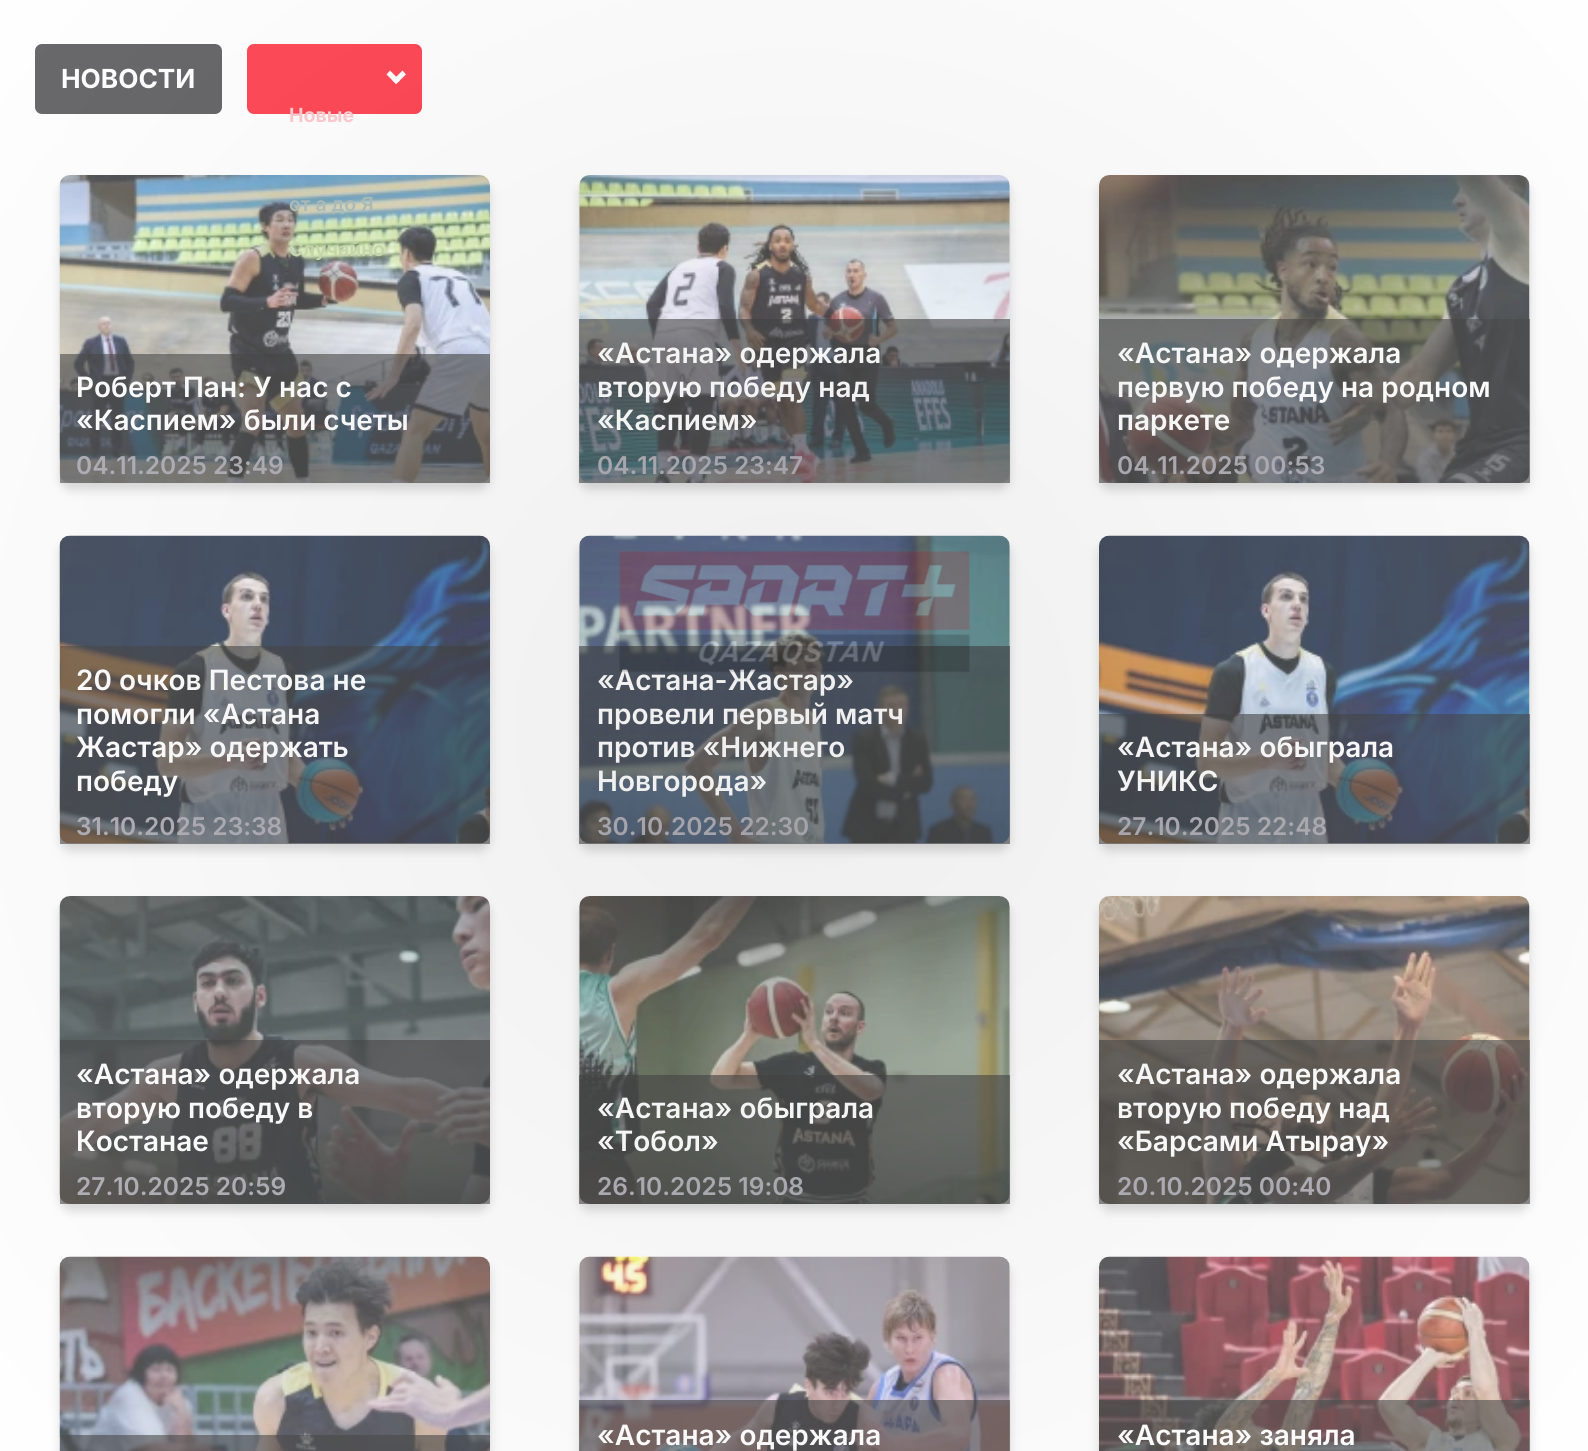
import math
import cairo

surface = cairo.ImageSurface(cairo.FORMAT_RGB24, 1588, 1451)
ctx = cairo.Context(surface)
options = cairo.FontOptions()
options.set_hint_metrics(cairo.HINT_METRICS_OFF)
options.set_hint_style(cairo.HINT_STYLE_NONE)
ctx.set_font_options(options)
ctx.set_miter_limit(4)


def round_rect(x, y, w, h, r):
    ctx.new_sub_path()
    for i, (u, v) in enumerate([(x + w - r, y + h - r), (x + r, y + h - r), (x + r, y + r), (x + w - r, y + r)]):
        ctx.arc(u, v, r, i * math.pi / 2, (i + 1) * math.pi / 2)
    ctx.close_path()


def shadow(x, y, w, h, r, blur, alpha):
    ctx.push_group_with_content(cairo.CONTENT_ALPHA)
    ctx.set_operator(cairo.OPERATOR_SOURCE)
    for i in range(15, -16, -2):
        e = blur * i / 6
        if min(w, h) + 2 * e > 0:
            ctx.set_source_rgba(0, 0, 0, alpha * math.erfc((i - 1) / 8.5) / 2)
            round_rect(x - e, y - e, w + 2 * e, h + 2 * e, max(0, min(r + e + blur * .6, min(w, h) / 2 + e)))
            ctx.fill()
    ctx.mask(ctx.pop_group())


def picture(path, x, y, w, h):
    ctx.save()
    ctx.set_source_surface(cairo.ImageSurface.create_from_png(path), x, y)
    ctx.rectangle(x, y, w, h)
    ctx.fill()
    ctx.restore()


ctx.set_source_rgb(1, 1, 1)
ctx.paint()
ctx.set_source_rgb(0.161, 0.157, 0.169)
round_rect(35, 44, 187, 70, 7)
ctx.fill()
ctx.select_font_face("Inter", cairo.FONT_SLANT_NORMAL, cairo.FONT_WEIGHT_BOLD)
ctx.set_font_size(26.25)
ctx.set_source_rgb(1, 1, 1)
ctx.move_to(61, 88)
ctx.show_text("НОВОСТИ")
ctx.set_source_rgb(1, 0, 0.082)
round_rect(247, 44, 175, 70, 7)
ctx.fill()
ctx.set_source_rgb(1, 1, 1)
ctx.new_path()
ctx.move_to(402.5, 70.5)
ctx.line_to(406, 74.5)
ctx.line_to(396, 84)
ctx.line_to(392.5, 80.5)
ctx.close_path()
ctx.fill()
ctx.new_path()
ctx.move_to(390, 70.5)
ctx.line_to(400, 80.5)
ctx.line_to(396, 84)
ctx.line_to(386.5, 74.5)
ctx.close_path()
ctx.fill()
ctx.set_font_size(19.5)
ctx.set_source_rgb(1, 0.714, 0.737)
ctx.move_to(289, 122)
ctx.show_text("Новые")
ctx.set_source_rgb(0, 0, 0)
shadow(60, 182, 430, 308, 11, 5, 0.2)
picture("img2.png", 59, 175, 431, 308)
ctx.select_font_face("Inter SemiBold")
ctx.set_source_rgb(0.557, 0.647, 0.624)
ctx.move_to(289, 211)
ctx.show_text("от а до Я")
ctx.set_source_rgb(0.706, 0.804, 0.565)
ctx.move_to(289, 256)
ctx.show_text("Случайно")
ctx.set_source_rgba(0, 0, 0, 0.6)
ctx.rectangle(60, 354, 430, 129)
ctx.fill()
ctx.set_font_size(28)
ctx.set_source_rgb(1, 1, 1)
ctx.move_to(76, 397)
ctx.show_text("Роберт Пан: У нас с")
ctx.move_to(76, 430)
ctx.show_text("«Каспием» были счеты")
ctx.set_font_size(24.5)
ctx.set_source_rgb(0.576, 0.565, 0.608)
ctx.move_to(76, 474)
ctx.show_text("04.11.2025 23:49")
ctx.set_source_rgb(0, 0, 0)
shadow(579, 182, 431, 308, 11, 5, 0.2)
picture("img3.png", 579, 175, 431, 308)
ctx.set_source_rgba(0, 0, 0, 0.6)
ctx.rectangle(579, 319, 431, 164)
ctx.fill()
ctx.set_font_size(28)
ctx.set_source_rgb(1, 1, 1)
ctx.move_to(597, 363)
ctx.show_text("«Астана» одержала")
ctx.move_to(597, 397)
ctx.show_text("вторую победу над")
ctx.move_to(597, 430)
ctx.show_text("«Каспием»")
ctx.set_font_size(24.5)
ctx.set_source_rgb(0.576, 0.565, 0.608)
ctx.move_to(597, 474)
ctx.show_text("04.11.2025 23:47")
ctx.set_source_rgb(0, 0, 0)
shadow(1099, 182, 431, 308, 11, 5, 0.2)
picture("img4.png", 1099, 175, 431, 308)
ctx.set_source_rgba(0, 0, 0, 0.6)
ctx.rectangle(1099, 319, 431, 164)
ctx.fill()
ctx.set_font_size(28)
ctx.set_source_rgb(1, 1, 1)
ctx.move_to(1117, 363)
ctx.show_text("«Астана» одержала")
ctx.move_to(1117, 397)
ctx.show_text("первую победу на родном")
ctx.move_to(1117, 430)
ctx.show_text("паркете")
ctx.set_font_size(24.5)
ctx.set_source_rgb(0.576, 0.565, 0.608)
ctx.move_to(1117, 474)
ctx.show_text("04.11.2025 00:53")
ctx.set_source_rgb(0, 0, 0)
shadow(60, 543, 430, 308, 11, 5, 0.2)
picture("img5.png", 59, 535, 431, 309)
ctx.set_source_rgba(0, 0, 0, 0.6)
ctx.rectangle(60, 646, 430, 198)
ctx.fill()
ctx.set_font_size(28)
ctx.set_source_rgb(1, 1, 1)
ctx.move_to(76, 690)
ctx.show_text("20 очков Пестова не")
ctx.move_to(76, 724)
ctx.show_text("помогли «Астана")
ctx.move_to(76, 757)
ctx.show_text("Жастар» одержать")
ctx.move_to(76, 791)
ctx.show_text("победу")
ctx.set_font_size(24.5)
ctx.set_source_rgb(0.576, 0.565, 0.608)
ctx.move_to(76, 835)
ctx.show_text("31.10.2025 23:38")
ctx.set_source_rgb(0, 0, 0)
shadow(579, 543, 431, 308, 11, 5, 0.2)
picture("img6.png", 579, 535, 431, 309)
ctx.set_source_rgba(0, 0, 0, 0.6)
ctx.rectangle(579, 646, 431, 198)
ctx.fill()
ctx.set_font_size(28)
ctx.set_source_rgb(1, 1, 1)
ctx.move_to(597, 690)
ctx.show_text("«Астана-Жастар»")
ctx.move_to(597, 724)
ctx.show_text("провели первый матч")
ctx.move_to(597, 757)
ctx.show_text("против «Нижнего")
ctx.move_to(597, 791)
ctx.show_text("Новгорода»")
ctx.set_font_size(24.5)
ctx.set_source_rgb(0.576, 0.565, 0.608)
ctx.move_to(597, 835)
ctx.show_text("30.10.2025 22:30")
ctx.set_source_rgb(0, 0, 0)
shadow(1099, 543, 431, 308, 11, 5, 0.2)
picture("img7.png", 1099, 535, 431, 309)
ctx.set_source_rgba(0, 0, 0, 0.6)
ctx.rectangle(1099, 714, 431, 130)
ctx.fill()
ctx.set_font_size(28)
ctx.set_source_rgb(1, 1, 1)
ctx.move_to(1117, 757)
ctx.show_text("«Астана» обыграла")
ctx.move_to(1117, 791)
ctx.show_text("УНИКС")
ctx.set_font_size(24.5)
ctx.set_source_rgb(0.576, 0.565, 0.608)
ctx.move_to(1117, 835)
ctx.show_text("27.10.2025 22:48")
ctx.set_source_rgb(0, 0, 0)
shadow(60, 903, 430, 308, 11, 5, 0.2)
picture("img8.png", 59, 896, 431, 308)
ctx.set_source_rgba(0, 0, 0, 0.6)
ctx.rectangle(60, 1040, 430, 164)
ctx.fill()
ctx.set_font_size(28)
ctx.set_source_rgb(1, 1, 1)
ctx.move_to(76, 1084)
ctx.show_text("«Астана» одержала")
ctx.move_to(76, 1118)
ctx.show_text("вторую победу в")
ctx.move_to(76, 1151)
ctx.show_text("Костанае")
ctx.set_font_size(24.5)
ctx.set_source_rgb(0.576, 0.565, 0.608)
ctx.move_to(76, 1195)
ctx.show_text("27.10.2025 20:59")
ctx.set_source_rgb(0, 0, 0)
shadow(579, 903, 431, 308, 11, 5, 0.2)
picture("img9.png", 579, 896, 431, 308)
ctx.set_source_rgba(0, 0, 0, 0.6)
ctx.rectangle(579, 1075, 431, 129)
ctx.fill()
ctx.set_font_size(28)
ctx.set_source_rgb(1, 1, 1)
ctx.move_to(597, 1118)
ctx.show_text("«Астана» обыграла")
ctx.move_to(597, 1151)
ctx.show_text("«Тобол»")
ctx.set_font_size(24.5)
ctx.set_source_rgb(0.576, 0.565, 0.608)
ctx.move_to(597, 1195)
ctx.show_text("26.10.2025 19:08")
ctx.set_source_rgb(0, 0, 0)
shadow(1099, 903, 431, 308, 11, 5, 0.2)
picture("img10.png", 1099, 896, 431, 308)
ctx.set_source_rgba(0, 0, 0, 0.6)
ctx.rectangle(1099, 1040, 431, 164)
ctx.fill()
ctx.set_font_size(28)
ctx.set_source_rgb(1, 1, 1)
ctx.move_to(1117, 1084)
ctx.show_text("«Астана» одержала")
ctx.move_to(1117, 1118)
ctx.show_text("вторую победу над")
ctx.move_to(1117, 1151)
ctx.show_text("«Барсами Атырау»")
ctx.set_font_size(24.5)
ctx.set_source_rgb(0.576, 0.565, 0.608)
ctx.move_to(1117, 1195)
ctx.show_text("20.10.2025 00:40")
ctx.set_source_rgb(0, 0, 0)
shadow(60, 1264, 430, 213, 11, 5, 0.2)
picture("img11.png", 59, 1256, 431, 195)
ctx.set_source_rgba(0, 0, 0, 0.6)
ctx.rectangle(60, 1435, 430, 16)
ctx.fill()
ctx.set_source_rgb(0, 0, 0)
shadow(579, 1264, 431, 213, 11, 5, 0.2)
picture("img12.png", 579, 1256, 431, 195)
ctx.set_source_rgba(0, 0, 0, 0.6)
ctx.rectangle(579, 1400, 431, 51)
ctx.fill()
ctx.set_font_size(28)
ctx.set_source_rgb(1, 1, 1)
ctx.move_to(597, 1445)
ctx.show_text("«Астана» одержала")
ctx.set_source_rgb(0, 0, 0)
shadow(1099, 1264, 431, 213, 11, 5, 0.2)
picture("img13.png", 1099, 1256, 431, 195)
ctx.set_source_rgba(0, 0, 0, 0.6)
ctx.rectangle(1099, 1400, 431, 51)
ctx.fill()
ctx.set_source_rgb(1, 1, 1)
ctx.move_to(1117, 1445)
ctx.show_text("«Астана» заняла")
gradient = cairo.RadialGradient(795, 726, 0, 795, 726, 1076)
gradient.add_color_stop_rgba(0, 0.788, 0.788, 0.788, 0.3)
gradient.add_color_stop_rgba(1, 1, 1, 1, 0.3)
ctx.set_source(gradient)
ctx.rectangle(0, 0, 1588, 1451)
ctx.fill()
picture("img1.png", 619, 551, 351, 122)
surface.write_to_png("page.png")
